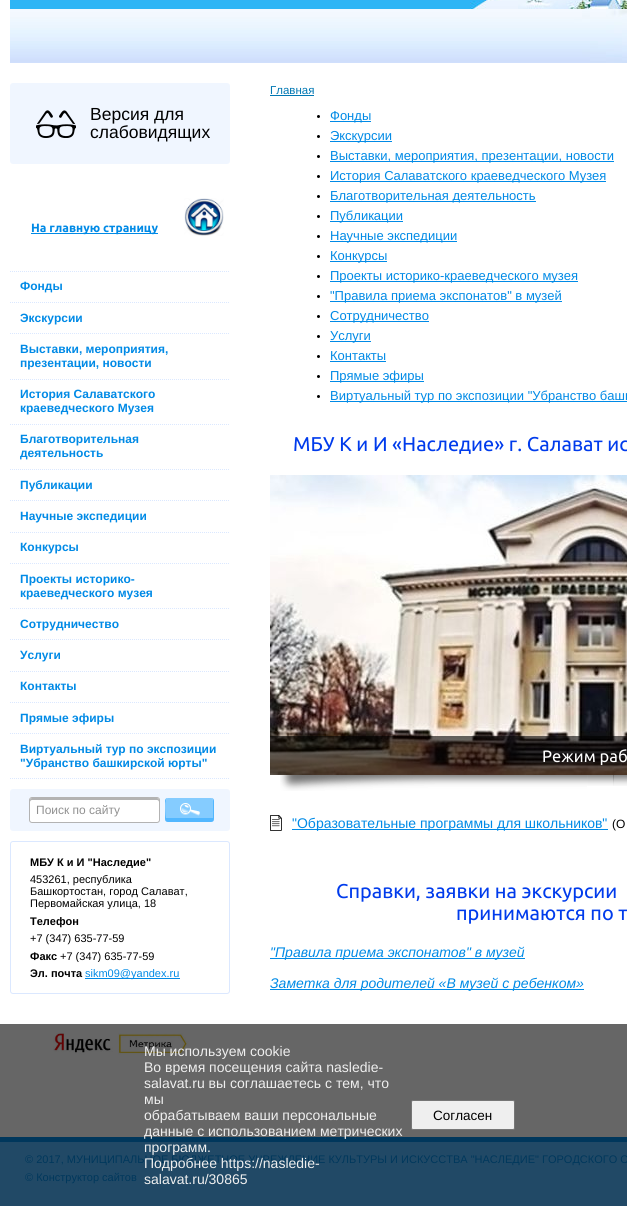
import math
import cairo

surface = cairo.ImageSurface(cairo.FORMAT_RGB24, 627, 1206)
ctx = cairo.Context(surface)
options = cairo.FontOptions()
options.set_hint_metrics(cairo.HINT_METRICS_OFF)
options.set_hint_style(cairo.HINT_STYLE_NONE)
ctx.set_font_options(options)
ctx.set_miter_limit(4)


def round_rect(x, y, w, h, r):
    ctx.new_sub_path()
    for i, (u, v) in enumerate([(x + w - r, y + h - r), (x + r, y + h - r), (x + r, y + r), (x + w - r, y + r)]):
        ctx.arc(u, v, r, i * math.pi / 2, (i + 1) * math.pi / 2)
    ctx.close_path()


def picture(path, x, y, w, h):
    ctx.save()
    ctx.set_source_surface(cairo.ImageSurface.create_from_png(path), x, y)
    ctx.rectangle(x, y, w, h)
    ctx.fill()
    ctx.restore()


ctx.set_source_rgb(1, 1, 1)
ctx.paint()
picture("img1.png", 10, 0, 617, 63)
ctx.set_source_rgb(0.941, 0.961, 1)
round_rect(10, 83, 220, 81, 3)
ctx.fill()
picture("img2.png", 36, 110, 40, 28)
ctx.select_font_face("Liberation Sans")
ctx.set_font_size(17.5)
ctx.set_source_rgb(0, 0, 0)
ctx.move_to(90, 120)
ctx.show_text("Версия для")
ctx.move_to(90, 138)
ctx.show_text("слабовидящих")
ctx.set_source_rgb(0, 0.541, 0.902)
ctx.rectangle(31, 233, 127, 1)
ctx.fill()
ctx.select_font_face("Ubuntu", cairo.FONT_SLANT_NORMAL, cairo.FONT_WEIGHT_BOLD)
ctx.set_font_size(12)
ctx.move_to(31, 232)
ctx.show_text("На главную страницу")
picture("img3.png", 184, 198, 40, 38)
ctx.new_path()
ctx.move_to(10, 778.5)
ctx.line_to(230, 778.5)
ctx.set_source_rgb(0.859, 0.91, 1)
ctx.set_line_width(1)
ctx.set_dash([1, 1])
ctx.stroke()
ctx.new_path()
ctx.move_to(10, 271.5)
ctx.line_to(230, 271.5)
ctx.stroke()
ctx.select_font_face("Liberation Sans", cairo.FONT_SLANT_NORMAL, cairo.FONT_WEIGHT_BOLD)
ctx.set_source_rgb(0, 0.541, 0.902)
ctx.move_to(20, 290)
ctx.show_text("Фонды")
ctx.new_path()
ctx.move_to(10, 302.5)
ctx.line_to(230, 302.5)
ctx.set_source_rgb(0.859, 0.91, 1)
ctx.stroke()
ctx.set_source_rgb(0, 0.541, 0.902)
ctx.move_to(20, 322)
ctx.show_text("Экскурсии")
ctx.new_path()
ctx.move_to(10, 333.5)
ctx.line_to(230, 333.5)
ctx.set_source_rgb(0.859, 0.91, 1)
ctx.stroke()
ctx.set_source_rgb(0, 0.541, 0.902)
ctx.move_to(20, 353)
ctx.show_text("Выставки, мероприятия,")
ctx.move_to(20, 367)
ctx.show_text("презентации, новости")
ctx.new_path()
ctx.move_to(10, 379.5)
ctx.line_to(230, 379.5)
ctx.set_source_rgb(0.859, 0.91, 1)
ctx.stroke()
ctx.set_source_rgb(0, 0.541, 0.902)
ctx.move_to(20, 398)
ctx.show_text("История Салаватского")
ctx.move_to(20, 412)
ctx.show_text("краеведческого Музея")
ctx.new_path()
ctx.move_to(10, 424.5)
ctx.line_to(230, 424.5)
ctx.set_source_rgb(0.859, 0.91, 1)
ctx.stroke()
ctx.set_source_rgb(0, 0.541, 0.902)
ctx.move_to(20, 443)
ctx.show_text("Благотворительная")
ctx.move_to(20, 457)
ctx.show_text("деятельность")
ctx.new_path()
ctx.move_to(10, 469.5)
ctx.line_to(230, 469.5)
ctx.set_source_rgb(0.859, 0.91, 1)
ctx.stroke()
ctx.set_source_rgb(0, 0.541, 0.902)
ctx.move_to(20, 489)
ctx.show_text("Публикации")
ctx.new_path()
ctx.move_to(10, 500.5)
ctx.line_to(230, 500.5)
ctx.set_source_rgb(0.859, 0.91, 1)
ctx.stroke()
ctx.set_source_rgb(0, 0.541, 0.902)
ctx.move_to(20, 520)
ctx.show_text("Научные экспедиции")
ctx.new_path()
ctx.move_to(10, 532.5)
ctx.line_to(230, 532.5)
ctx.set_source_rgb(0.859, 0.91, 1)
ctx.stroke()
ctx.set_source_rgb(0, 0.541, 0.902)
ctx.move_to(20, 551)
ctx.show_text("Конкурсы")
ctx.new_path()
ctx.move_to(10, 563.5)
ctx.line_to(230, 563.5)
ctx.set_source_rgb(0.859, 0.91, 1)
ctx.stroke()
ctx.set_source_rgb(0, 0.541, 0.902)
ctx.move_to(20, 583)
ctx.show_text("Проекты историко-")
ctx.move_to(20, 597)
ctx.show_text("краеведческого музея")
ctx.new_path()
ctx.move_to(10, 608.5)
ctx.line_to(230, 608.5)
ctx.set_source_rgb(0.859, 0.91, 1)
ctx.stroke()
ctx.set_source_rgb(0, 0.541, 0.902)
ctx.move_to(20, 628)
ctx.show_text("Сотрудничество")
ctx.new_path()
ctx.move_to(10, 639.5)
ctx.line_to(230, 639.5)
ctx.set_source_rgb(0.859, 0.91, 1)
ctx.stroke()
ctx.set_source_rgb(0, 0.541, 0.902)
ctx.move_to(20, 659)
ctx.show_text("Услуги")
ctx.new_path()
ctx.move_to(10, 671.5)
ctx.line_to(230, 671.5)
ctx.set_source_rgb(0.859, 0.91, 1)
ctx.stroke()
ctx.set_source_rgb(0, 0.541, 0.902)
ctx.move_to(20, 690)
ctx.show_text("Контакты")
ctx.new_path()
ctx.move_to(10, 702.5)
ctx.line_to(230, 702.5)
ctx.set_source_rgb(0.859, 0.91, 1)
ctx.stroke()
ctx.set_source_rgb(0, 0.541, 0.902)
ctx.move_to(20, 722)
ctx.show_text("Прямые эфиры")
ctx.new_path()
ctx.move_to(10, 733.5)
ctx.line_to(230, 733.5)
ctx.set_source_rgb(0.859, 0.91, 1)
ctx.stroke()
ctx.set_source_rgb(0, 0.541, 0.902)
ctx.move_to(20, 753)
ctx.show_text("Виртуальный тур по экспозиции")
ctx.move_to(20, 767)
ctx.show_text("\"Убранство башкирской юрты\"")
ctx.set_source_rgb(0.941, 0.961, 1)
round_rect(10, 789, 220, 42, 3)
ctx.fill()
ctx.set_source_rgb(1, 1, 1)
round_rect(29, 797, 131, 26, 3)
ctx.fill()
ctx.set_source_rgb(0.702, 0.702, 0.702)
ctx.new_path()
ctx.move_to(32, 800)
ctx.line_to(157, 800)
ctx.curve_to(158, 800, 159, 801, 159, 802)
ctx.line_to(159, 800)
ctx.curve_to(159, 799, 158, 798, 157, 798)
ctx.line_to(32, 798)
ctx.curve_to(31, 798, 30, 799, 30, 800)
ctx.line_to(30, 802)
ctx.curve_to(30, 801, 31, 800, 32, 800)
ctx.close_path()
ctx.fill()
round_rect(29.5, 797.5, 130, 25, 2.5)
ctx.set_dash([])
ctx.stroke()
ctx.select_font_face("Liberation Sans")
ctx.set_source_rgb(0.565, 0.565, 0.565)
ctx.move_to(36, 814)
ctx.show_text("Поиск по сайту")
ctx.set_source_rgb(0.522, 0.8, 1)
ctx.new_path()
ctx.move_to(168, 798)
ctx.line_to(211, 798)
ctx.curve_to(212, 798, 213, 799, 213, 801)
ctx.line_to(213, 818)
ctx.line_to(166, 818)
ctx.curve_to(166, 815, 164, 798, 168, 798)
ctx.close_path()
ctx.fill()
ctx.set_source_rgb(0.322, 0.718, 1)
ctx.set_fill_rule(cairo.FILL_RULE_EVEN_ODD)
ctx.new_path()
ctx.move_to(168, 798)
ctx.line_to(211, 798)
ctx.curve_to(213, 798, 214, 799, 214, 801)
ctx.line_to(214, 819)
ctx.curve_to(214, 821, 213, 822, 211, 822)
ctx.line_to(168, 822)
ctx.curve_to(166, 822, 165, 821, 165, 819)
ctx.line_to(165, 801)
ctx.curve_to(165, 799, 166, 798, 168, 798)
ctx.close_path()
ctx.move_to(168, 798)
ctx.line_to(211, 798)
ctx.curve_to(212, 798, 213, 799, 213, 801)
ctx.line_to(213, 818)
ctx.line_to(166, 818)
ctx.curve_to(166, 815, 164, 798, 168, 798)
ctx.close_path()
ctx.fill()
picture("img4.png", 180, 803, 20, 13)
round_rect(10.5, 841.5, 219, 152, 2.5)
ctx.set_source_rgb(0.859, 0.91, 1)
ctx.stroke()
ctx.save()
ctx.set_fill_rule(cairo.FILL_RULE_WINDING)
ctx.rectangle(30, 856, 180, 12)
ctx.clip()
ctx.select_font_face("Liberation Sans", cairo.FONT_SLANT_NORMAL, cairo.FONT_WEIGHT_BOLD)
ctx.set_font_size(11)
ctx.set_source_rgb(0, 0, 0)
ctx.move_to(30, 866)
ctx.show_text("МБУ К и И \"Наследие\"")
ctx.restore()
ctx.set_font_size(11)
ctx.set_source_rgb(0, 0, 0)
ctx.move_to(30, 883)
ctx.show_text("453261, республика")
ctx.move_to(30, 895)
ctx.show_text("Башкортостан, город Салават,")
ctx.save()
ctx.set_fill_rule(cairo.FILL_RULE_WINDING)
ctx.rectangle(30, 873, 180, 36)
ctx.clip()
ctx.move_to(30, 907)
ctx.show_text("Первомайская улица, 18")
ctx.restore()
ctx.select_font_face("Liberation Sans", cairo.FONT_SLANT_NORMAL, cairo.FONT_WEIGHT_BOLD)
ctx.move_to(30, 925)
ctx.show_text("Телефон")
ctx.select_font_face("Liberation Sans")
ctx.move_to(30, 942)
ctx.show_text("+7 (347) 635-77-59")
ctx.select_font_face("Liberation Sans", cairo.FONT_SLANT_NORMAL, cairo.FONT_WEIGHT_BOLD)
ctx.move_to(30, 960)
ctx.show_text("Факс")
ctx.save()
ctx.set_fill_rule(cairo.FILL_RULE_WINDING)
ctx.rectangle(30, 950, 180, 12)
ctx.clip()
ctx.select_font_face("Liberation Sans")
ctx.move_to(60, 960)
ctx.show_text("+7 (347) 635-77-59")
ctx.restore()
ctx.move_to(30, 977)
ctx.show_text("Эл. почта")
ctx.set_source_rgb(0, 0.541, 0.902)
ctx.rectangle(85, 978, 95, 1)
ctx.fill()
ctx.select_font_face("Liberation Sans")
ctx.move_to(85, 977)
ctx.show_text("sikm09@yandex.ru")
picture("img5.png", 53, 1033, 136, 22)
ctx.set_font_size(11.5)
ctx.set_source_rgb(0, 0.467, 0.702)
ctx.move_to(270, 94)
ctx.show_text("Главная")
ctx.rectangle(270, 95, 44, 1)
ctx.fill()
ctx.set_source_rgb(0, 0, 0)
ctx.arc(318.5, 116.5, 1.5, 0, 2 * math.pi)
ctx.fill()
ctx.set_source_rgb(0, 0.541, 0.902)
ctx.rectangle(330, 121, 41, 1)
ctx.fill()
ctx.set_font_size(13)
ctx.move_to(330, 120)
ctx.show_text("Фонды")
ctx.set_source_rgb(0, 0, 0)
ctx.new_path()
ctx.arc(318.5, 136.5, 1.5, 0, 2 * math.pi)
ctx.fill()
ctx.set_source_rgb(0, 0.541, 0.902)
ctx.rectangle(330, 141, 62, 1)
ctx.fill()
ctx.move_to(330, 140)
ctx.show_text("Экскурсии")
ctx.set_source_rgb(0, 0, 0)
ctx.new_path()
ctx.arc(318.5, 156.5, 1.5, 0, 2 * math.pi)
ctx.fill()
ctx.set_source_rgb(0, 0.541, 0.902)
ctx.rectangle(330, 161, 284, 1)
ctx.fill()
ctx.move_to(330, 160)
ctx.show_text("Выставки, мероприятия, презентации, новости")
ctx.set_source_rgb(0, 0, 0)
ctx.new_path()
ctx.arc(318.5, 176.5, 1.5, 0, 2 * math.pi)
ctx.fill()
ctx.set_source_rgb(0, 0.541, 0.902)
ctx.rectangle(330, 181, 276, 1)
ctx.fill()
ctx.move_to(330, 180)
ctx.show_text("История Салаватского краеведческого Музея")
ctx.set_source_rgb(0, 0, 0)
ctx.new_path()
ctx.arc(318.5, 196.5, 1.5, 0, 2 * math.pi)
ctx.fill()
ctx.set_source_rgb(0, 0.541, 0.902)
ctx.rectangle(330, 201, 206, 1)
ctx.fill()
ctx.move_to(330, 200)
ctx.show_text("Благотворительная деятельность")
ctx.set_source_rgb(0, 0, 0)
ctx.new_path()
ctx.arc(318.5, 216.5, 1.5, 0, 2 * math.pi)
ctx.fill()
ctx.set_source_rgb(0, 0.541, 0.902)
ctx.rectangle(330, 221, 73, 1)
ctx.fill()
ctx.move_to(330, 220)
ctx.show_text("Публикации")
ctx.set_source_rgb(0, 0, 0)
ctx.new_path()
ctx.arc(318.5, 236.5, 1.5, 0, 2 * math.pi)
ctx.fill()
ctx.set_source_rgb(0, 0.541, 0.902)
ctx.rectangle(330, 241, 127, 1)
ctx.fill()
ctx.move_to(330, 240)
ctx.show_text("Научные экспедиции")
ctx.set_source_rgb(0, 0, 0)
ctx.new_path()
ctx.arc(318.5, 256.5, 1.5, 0, 2 * math.pi)
ctx.fill()
ctx.set_source_rgb(0, 0.541, 0.902)
ctx.rectangle(330, 261, 57, 1)
ctx.fill()
ctx.move_to(330, 260)
ctx.show_text("Конкурсы")
ctx.set_source_rgb(0, 0, 0)
ctx.new_path()
ctx.arc(318.5, 276.5, 1.5, 0, 2 * math.pi)
ctx.fill()
ctx.set_source_rgb(0, 0.541, 0.902)
ctx.rectangle(330, 281, 248, 1)
ctx.fill()
ctx.move_to(330, 280)
ctx.show_text("Проекты историко-краеведческого музея")
ctx.set_source_rgb(0, 0, 0)
ctx.new_path()
ctx.arc(318.5, 296.5, 1.5, 0, 2 * math.pi)
ctx.fill()
ctx.set_source_rgb(0, 0.541, 0.902)
ctx.rectangle(330, 301, 232, 1)
ctx.fill()
ctx.move_to(330, 300)
ctx.show_text("\"Правила приема экспонатов\" в музей")
ctx.set_source_rgb(0, 0, 0)
ctx.new_path()
ctx.arc(318.5, 316.5, 1.5, 0, 2 * math.pi)
ctx.fill()
ctx.set_source_rgb(0, 0.541, 0.902)
ctx.rectangle(330, 321, 99, 1)
ctx.fill()
ctx.move_to(330, 320)
ctx.show_text("Сотрудничество")
ctx.set_source_rgb(0, 0, 0)
ctx.new_path()
ctx.arc(318.5, 336.5, 1.5, 0, 2 * math.pi)
ctx.fill()
ctx.set_source_rgb(0, 0.541, 0.902)
ctx.rectangle(330, 341, 41, 1)
ctx.fill()
ctx.move_to(330, 340)
ctx.show_text("Услуги")
ctx.set_source_rgb(0, 0, 0)
ctx.new_path()
ctx.arc(318.5, 356.5, 1.5, 0, 2 * math.pi)
ctx.fill()
ctx.set_source_rgb(0, 0.541, 0.902)
ctx.move_to(330, 360)
ctx.show_text("Контакты")
ctx.rectangle(330, 361, 56, 1)
ctx.fill()
ctx.set_source_rgb(0, 0, 0)
ctx.arc(318.5, 376.5, 1.5, 0, 2 * math.pi)
ctx.fill()
ctx.set_source_rgb(0, 0.541, 0.902)
ctx.rectangle(330, 381, 94, 1)
ctx.fill()
ctx.move_to(330, 380)
ctx.show_text("Прямые эфиры")
ctx.set_source_rgb(0, 0, 0)
ctx.new_path()
ctx.arc(318.5, 396.5, 1.5, 0, 2 * math.pi)
ctx.fill()
ctx.set_source_rgb(0, 0.541, 0.902)
ctx.rectangle(330, 401, 297, 1)
ctx.fill()
ctx.move_to(330, 400)
ctx.show_text("Виртуальный тур по экспозиции \"Убранство башк")
ctx.select_font_face("Ubuntu")
ctx.set_font_size(20)
ctx.set_source_rgb(0, 0.231, 0.922)
ctx.move_to(293, 451)
ctx.show_text("МБУ К и И «Наследие» г. Салават ис")
picture("img6.png", 270, 475, 357, 300)
ctx.set_source_rgba(0, 0, 0, 0.6)
ctx.rectangle(270, 736, 357, 39)
ctx.fill()
ctx.set_font_size(16.5)
ctx.set_source_rgb(1, 1, 1)
ctx.move_to(542, 762)
ctx.show_text("Режим раб")
picture("img7.png", 280, 775, 307, 16)
picture("img8.png", 587, 775, 27, 11)
picture("img9.png", 613, 775, 14, 11)
picture("img10.png", 270, 815, 12, 16)
ctx.set_source_rgb(0, 0.541, 0.902)
ctx.rectangle(292, 829, 316, 1)
ctx.fill()
ctx.select_font_face("Liberation Sans")
ctx.set_font_size(14)
ctx.move_to(292, 828)
ctx.show_text("\"Образовательные программы для школьников\"")
ctx.set_font_size(12)
ctx.set_source_rgb(0, 0, 0)
ctx.move_to(612, 828)
ctx.show_text("(О")
ctx.select_font_face("Ubuntu")
ctx.set_font_size(20)
ctx.set_source_rgb(0, 0.231, 0.922)
ctx.move_to(336, 898)
ctx.show_text("Справки, заявки на экскурсии")
ctx.move_to(456, 920)
ctx.show_text("принимаются по т")
ctx.set_source_rgb(0, 0.541, 0.902)
ctx.rectangle(270, 958, 255, 1)
ctx.fill()
ctx.select_font_face("Liberation Sans", cairo.FONT_SLANT_ITALIC)
ctx.set_font_size(14)
ctx.move_to(270, 957)
ctx.show_text("\"Правила приема экспонатов\" в музей")
ctx.rectangle(270, 989, 314, 1)
ctx.fill()
ctx.move_to(270, 988)
ctx.show_text("Заметка для родителей «В музей с ребенком»")
ctx.set_source_rgb(0.322, 0.718, 1)
ctx.rectangle(0, 1142, 627, 64)
ctx.fill()
ctx.set_source_rgb(0, 0.541, 0.902)
ctx.rectangle(0, 1137, 627, 5)
ctx.fill()
ctx.select_font_face("Liberation Sans")
ctx.set_font_size(11)
ctx.move_to(25, 1163)
ctx.show_text("© 2017, МУНИЦИПАЛЬНОЕ БЮДЖЕТНОЕ УЧРЕЖДЕНИЕ КУЛЬТУРЫ И ИСКУССТВА \"НАСЛЕДИЕ\" ГОРОДСКОГО О")
ctx.move_to(25, 1181)
ctx.show_text("© Конструктор сайтов")
ctx.set_source_rgb(0.302, 0.722, 1)
ctx.rectangle(140, 1182, 45, 1)
ctx.fill()
ctx.set_source_rgba(0, 0, 0, 0.6)
ctx.rectangle(0, 1024, 627, 182)
ctx.fill()
ctx.set_font_size(14)
ctx.set_source_rgb(0.937, 0.937, 0.937)
ctx.move_to(144, 1056)
ctx.show_text("Мы используем cookie")
ctx.move_to(144, 1072)
ctx.show_text("Во время посещения сайта nasledie-")
ctx.move_to(144, 1088)
ctx.show_text("salavat.ru вы соглашаетесь с тем, что")
ctx.move_to(144, 1104)
ctx.show_text("мы")
ctx.move_to(144, 1120)
ctx.show_text("обрабатываем ваши персональные")
ctx.move_to(144, 1136)
ctx.show_text("данные с использованием метрических")
ctx.move_to(144, 1152)
ctx.show_text("программ.")
ctx.move_to(144, 1168)
ctx.show_text("Подробнее https://nasledie-")
ctx.move_to(144, 1184)
ctx.show_text("salavat.ru/30865")
round_rect(411.5, 1100.5, 103, 29, 1.5)
ctx.fill_preserve()
ctx.set_source_rgb(0.463, 0.463, 0.463)
ctx.stroke()
ctx.set_font_size(13.5)
ctx.set_source_rgb(0, 0, 0)
ctx.move_to(433, 1120)
ctx.show_text("Согласен")
surface.write_to_png("page.png")
